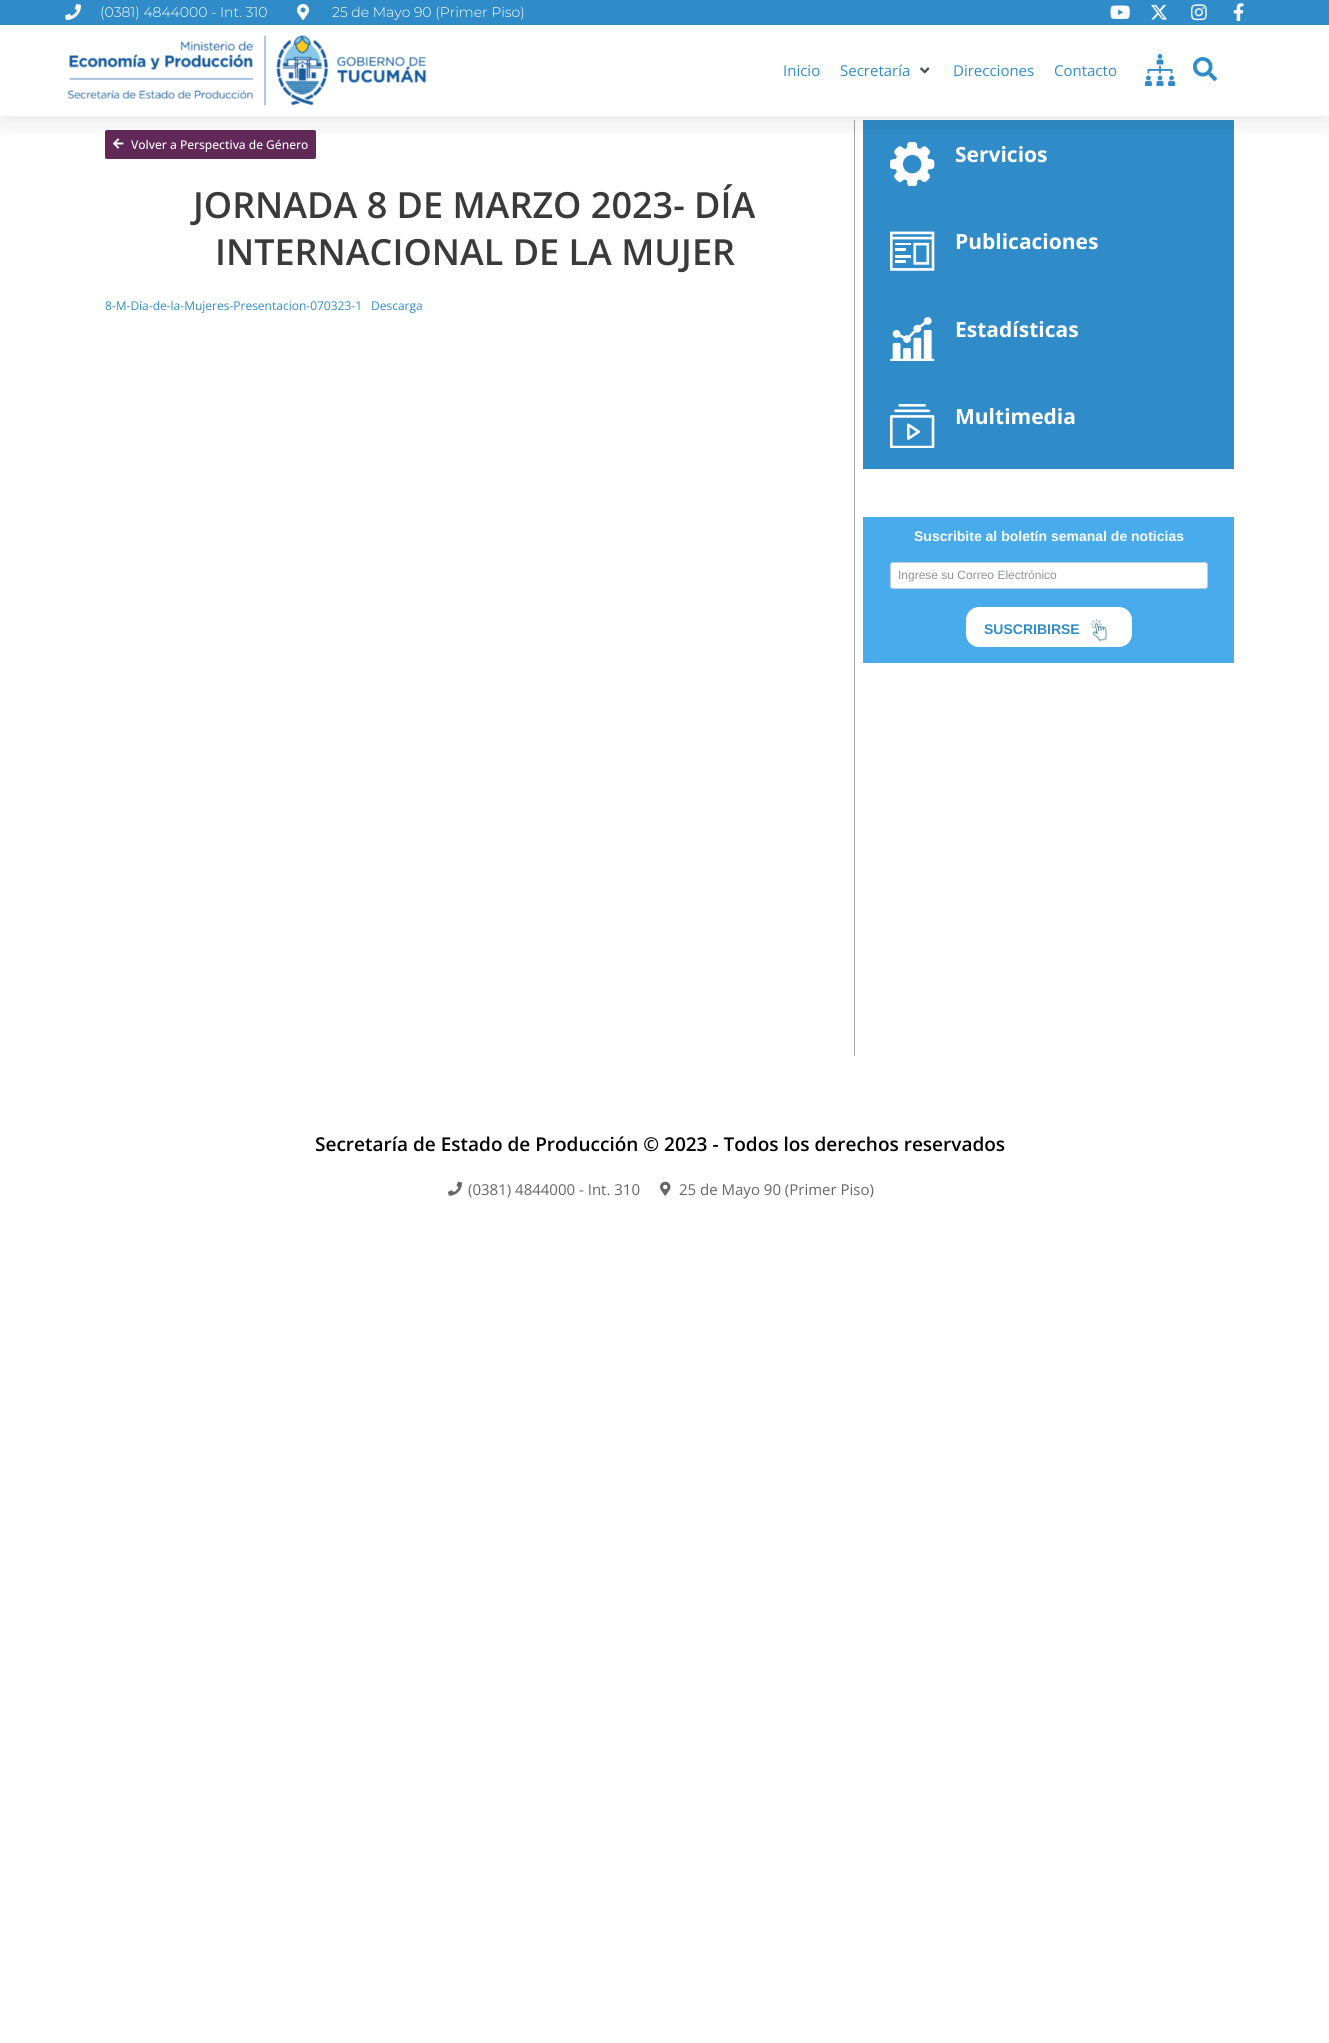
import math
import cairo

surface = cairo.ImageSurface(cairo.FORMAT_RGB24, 1329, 2043)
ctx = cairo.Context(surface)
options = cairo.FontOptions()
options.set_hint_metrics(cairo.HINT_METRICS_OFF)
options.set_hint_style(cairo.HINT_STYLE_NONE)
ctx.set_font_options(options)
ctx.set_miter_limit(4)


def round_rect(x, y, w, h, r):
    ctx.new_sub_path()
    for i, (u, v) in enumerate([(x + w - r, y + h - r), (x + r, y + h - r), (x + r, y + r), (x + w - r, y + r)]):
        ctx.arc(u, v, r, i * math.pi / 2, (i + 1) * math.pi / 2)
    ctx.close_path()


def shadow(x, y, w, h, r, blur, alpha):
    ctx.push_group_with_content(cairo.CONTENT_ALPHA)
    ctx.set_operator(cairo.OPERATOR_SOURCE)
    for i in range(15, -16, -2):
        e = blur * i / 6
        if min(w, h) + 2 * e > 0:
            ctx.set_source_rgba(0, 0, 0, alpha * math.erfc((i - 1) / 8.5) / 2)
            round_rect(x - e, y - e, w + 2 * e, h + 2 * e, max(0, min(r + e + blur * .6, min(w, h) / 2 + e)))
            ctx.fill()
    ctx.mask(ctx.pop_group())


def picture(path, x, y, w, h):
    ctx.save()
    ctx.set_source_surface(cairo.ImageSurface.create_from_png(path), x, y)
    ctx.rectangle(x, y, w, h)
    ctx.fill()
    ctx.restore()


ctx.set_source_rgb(1, 1, 1)
ctx.paint()
ctx.set_source_rgb(0.38, 0.161, 0.345)
round_rect(105, 130, 211, 29, 2)
ctx.fill()
picture("img11.png", 113, 138, 11, 11)
ctx.set_source_rgb(0.651, 0.651, 0.651)
ctx.rectangle(854, 120, 1, 936)
ctx.fill()
ctx.set_source_rgb(0.188, 0.549, 0.788)
ctx.rectangle(863, 120, 371, 349)
ctx.fill()
picture("img12.png", 890, 142, 45, 44)
ctx.save()
ctx.rectangle(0, 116, 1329, 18)
ctx.clip()
ctx.set_source_rgb(0, 0, 0)
shadow(0, 5, 1329, 116, 0, 15, 0.1)
ctx.restore()
ctx.rectangle(0, 0, 1329, 25)
ctx.fill()
picture("img1.png", 65, 4, 16, 16)
ctx.select_font_face("Montserrat Light")
ctx.set_font_size(14)
ctx.set_source_rgb(1, 1, 1)
ctx.move_to(100, 17)
ctx.show_text("(0381) 4844000 - Int. 310")
picture("img2.png", 297, 4, 12, 16)
ctx.move_to(332, 17)
ctx.show_text("25 de Mayo 90 (Primer Piso)")
picture("img3.png", 1110, 5, 20, 14)
picture("img4.png", 1151, 4, 16, 16)
picture("img5.png", 1191, 4, 16, 17)
picture("img6.png", 1233, 3, 11, 18)
picture("img7.png", 67, 35, 360, 71)
ctx.select_font_face("Open Sans")
ctx.set_font_size(15)
ctx.set_source_rgb(0.188, 0.549, 0.788)
ctx.move_to(783, 76)
ctx.show_text("Inicio")
ctx.move_to(840, 76)
ctx.show_text("Secretaría")
picture("img8.png", 920, 67, 10, 7)
ctx.move_to(953, 76)
ctx.show_text("Direcciones")
ctx.move_to(1054, 76)
ctx.show_text("Contacto")
picture("img9.png", 1144, 54, 32, 32)
picture("img10.png", 1193, 57, 24, 24)
ctx.select_font_face("Open Sans Medium")
ctx.set_font_size(12)
ctx.set_source_rgb(1, 1, 1)
ctx.move_to(131, 149)
ctx.show_text("Volver a Perspectiva de Género")
ctx.select_font_face("Open Sans SemiBold")
ctx.set_font_size(36)
ctx.set_source_rgb(0.227, 0.227, 0.227)
ctx.move_to(193, 218)
ctx.show_text("JORNADA 8 DE MARZO 2023- DÍA")
ctx.move_to(215, 265)
ctx.show_text("INTERNACIONAL DE LA MUJER")
ctx.select_font_face("Open Sans")
ctx.set_font_size(12)
ctx.set_source_rgb(0.188, 0.549, 0.788)
ctx.move_to(105, 310)
ctx.show_text("8-M-Dia-de-la-Mujeres-Presentacion-070323-1")
ctx.move_to(371, 310)
ctx.show_text("Descarga")
ctx.select_font_face("Open Sans", cairo.FONT_SLANT_NORMAL, cairo.FONT_WEIGHT_BOLD)
ctx.set_font_size(21)
ctx.set_source_rgb(1, 1, 1)
ctx.move_to(955, 162)
ctx.show_text("Servicios")
picture("img13.png", 890, 231, 45, 40)
ctx.move_to(955, 249)
ctx.show_text("Publicaciones")
picture("img14.png", 890, 317, 45, 44)
ctx.move_to(955, 337)
ctx.show_text("Estadísticas")
picture("img15.png", 890, 404, 45, 44)
ctx.move_to(955, 424)
ctx.show_text("Multimedia")
ctx.set_source_rgb(0.282, 0.671, 0.925)
ctx.rectangle(863, 517, 371, 146)
ctx.fill()
ctx.select_font_face("Liberation Sans", cairo.FONT_SLANT_NORMAL, cairo.FONT_WEIGHT_BOLD)
ctx.set_font_size(14)
ctx.set_source_rgb(1, 1, 1)
ctx.move_to(914, 541)
ctx.show_text("Suscribite al boletín semanal de noticias")
round_rect(890.5, 562.5, 317, 26, 2.5)
ctx.fill_preserve()
ctx.set_source_rgb(0.753, 0.8, 0.855)
ctx.set_line_width(1)
ctx.stroke()
ctx.select_font_face("Liberation Sans")
ctx.set_font_size(12)
ctx.set_source_rgb(0.565, 0.573, 0.58)
ctx.move_to(898, 579)
ctx.show_text("Ingrese su Correo Electrónico")
ctx.set_source_rgb(1, 1, 1)
round_rect(966, 607, 166, 40, 13)
ctx.fill()
ctx.select_font_face("Liberation Sans", cairo.FONT_SLANT_NORMAL, cairo.FONT_WEIGHT_BOLD)
ctx.set_font_size(14)
ctx.set_source_rgb(0.188, 0.549, 0.788)
ctx.move_to(984, 634)
ctx.show_text("SUSCRIBIRSE")
picture("img16.png", 1090, 618, 17, 24)
ctx.select_font_face("Open Sans SemiBold")
ctx.set_font_size(19)
ctx.set_source_rgb(0, 0, 0)
ctx.move_to(315, 1151)
ctx.show_text("Secretaría de Estado de Producción © 2023 - Todos los derechos reservados")
picture("img17.png", 448, 1181, 14, 15)
ctx.select_font_face("Open Sans")
ctx.set_font_size(15)
ctx.set_source_rgb(0.4, 0.4, 0.4)
ctx.move_to(468, 1195)
ctx.show_text("(0381) 4844000 - Int. 310")
picture("img18.png", 660, 1181, 11, 15)
ctx.move_to(679, 1195)
ctx.show_text("25 de Mayo 90 (Primer Piso)")
surface.write_to_png("page.png")
